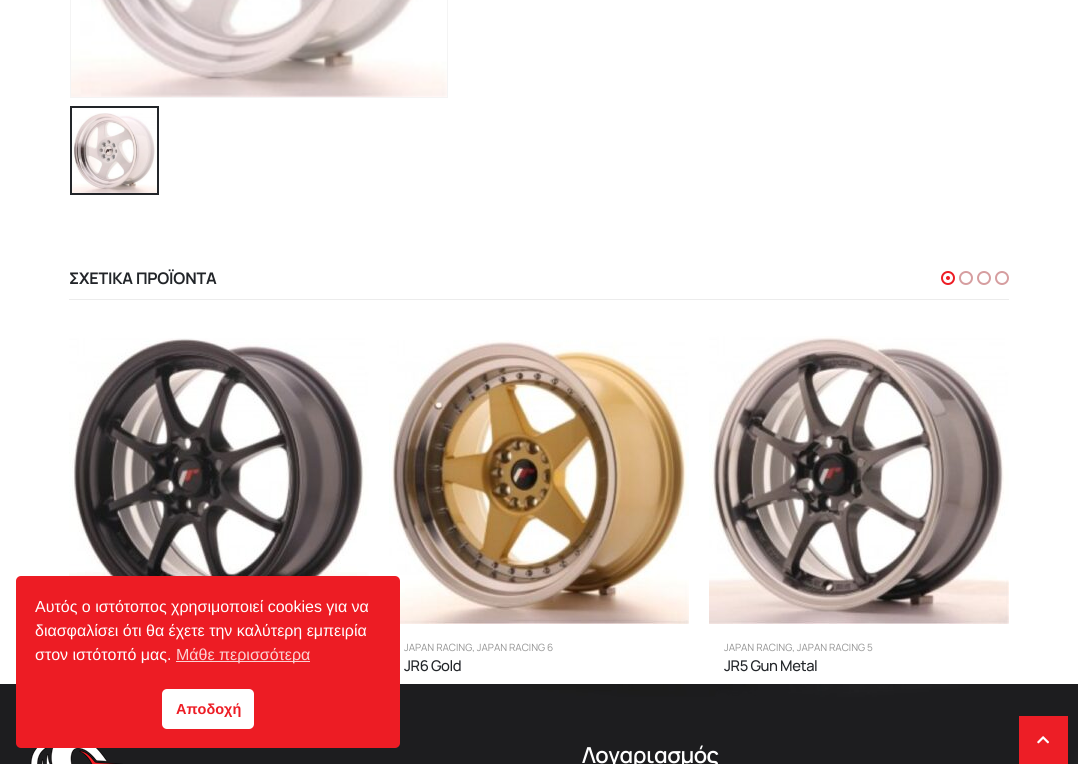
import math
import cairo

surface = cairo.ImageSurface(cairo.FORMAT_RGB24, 1078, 764)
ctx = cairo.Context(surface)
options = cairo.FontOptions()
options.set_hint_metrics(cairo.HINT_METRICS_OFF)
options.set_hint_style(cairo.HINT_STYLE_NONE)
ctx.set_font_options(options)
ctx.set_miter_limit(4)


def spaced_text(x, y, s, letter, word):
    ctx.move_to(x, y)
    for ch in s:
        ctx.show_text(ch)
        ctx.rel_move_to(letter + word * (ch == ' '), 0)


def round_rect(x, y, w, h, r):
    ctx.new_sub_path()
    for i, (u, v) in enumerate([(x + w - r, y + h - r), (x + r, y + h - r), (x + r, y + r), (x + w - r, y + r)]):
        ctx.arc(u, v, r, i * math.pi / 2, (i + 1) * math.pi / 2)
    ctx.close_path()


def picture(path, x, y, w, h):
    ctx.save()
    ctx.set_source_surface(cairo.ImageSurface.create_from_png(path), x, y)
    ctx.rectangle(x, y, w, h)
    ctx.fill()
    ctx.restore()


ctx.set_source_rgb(1, 1, 1)
ctx.paint()
ctx.rectangle(70.5, -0.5, 377, 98)
ctx.set_source_rgb(0.957, 0.957, 0.957)
ctx.set_line_width(1)
ctx.stroke()
picture("img1.png", 71, 0, 376, 97)
ctx.rectangle(71, 107, 87, 87)
ctx.set_source_rgb(0.133, 0.145, 0.161)
ctx.set_line_width(2)
ctx.stroke()
picture("img2.png", 72, 113, 85, 80)
ctx.set_source_rgb(0.922, 0.922, 0.922)
ctx.rectangle(69, 299, 940, 1)
ctx.fill()
ctx.select_font_face("Manrope", cairo.FONT_SLANT_NORMAL, cairo.FONT_WEIGHT_BOLD)
ctx.set_font_size(16)
ctx.set_source_rgb(0.133, 0.145, 0.161)
spaced_text(69, 284, "ΣΧΕΤΙΚΑ ΠΡΟΪΟΝΤΑ", -0.2, 0)
ctx.new_path()
ctx.arc(948, 278, 6, 0, 2 * math.pi)
ctx.set_source_rgb(0.929, 0.11, 0.141)
ctx.stroke()
ctx.arc(948, 278, 2, 0, 2 * math.pi)
ctx.fill()
ctx.arc(966, 278, 6, 0, 2 * math.pi)
ctx.set_source_rgb(0.839, 0.62, 0.627)
ctx.stroke()
ctx.arc(984, 278, 6, 0, 2 * math.pi)
ctx.stroke()
ctx.arc(1002, 278, 6, 0, 2 * math.pi)
ctx.stroke()
picture("img3.png", 69, 338, 300, 238)
picture("img4.png", 389, 340, 300, 284)
ctx.select_font_face("Manrope")
ctx.set_font_size(10)
ctx.set_source_rgb(0.573, 0.573, 0.573)
ctx.move_to(404, 651)
ctx.show_text("JAPAN RACING, JAPAN RACING 6")
ctx.select_font_face("Manrope Medium")
ctx.set_font_size(14.75)
ctx.set_source_rgb(0.133, 0.145, 0.161)
spaced_text(404, 671, "JR6 Gold", -0.4, 0)
picture("img5.png", 709, 336, 300, 288)
ctx.select_font_face("Manrope")
ctx.set_font_size(10)
ctx.set_source_rgb(0.573, 0.573, 0.573)
ctx.move_to(724, 651)
ctx.show_text("JAPAN RACING, JAPAN RACING 5")
ctx.select_font_face("Manrope Medium")
ctx.set_font_size(14.75)
ctx.set_source_rgb(0.133, 0.145, 0.161)
spaced_text(724, 671, "JR5 Gun Metal", -0.4, 0)
picture("img6.png", 0, 684, 1078, 80)
picture("img7.png", 30, 748, 93, 16)
ctx.select_font_face("Manrope SemiBold")
ctx.set_font_size(22)
ctx.set_source_rgb(1, 1, 1)
spaced_text(582, 763, "Λογαριασμός", -0.5, 0)
ctx.set_source_rgb(0.929, 0.11, 0.141)
round_rect(16, 576, 384, 172, 5)
ctx.fill()
ctx.select_font_face("Liberation Sans")
ctx.set_font_size(16)
ctx.set_source_rgb(1, 1, 1)
ctx.move_to(35, 612)
ctx.show_text("Αυτός ο ιστότοπος χρησιμοποιεί cookies για να")
ctx.move_to(35, 636)
ctx.show_text("διασφαλίσει ότι θα έχετε την καλύτερη εμπειρία")
ctx.move_to(35, 660)
ctx.show_text("στον ιστότοπό μας.")
ctx.set_source_rgb(0.984, 0.824, 0.827)
ctx.rectangle(176, 661, 134, 1)
ctx.fill()
ctx.move_to(176, 660)
ctx.show_text("Μάθε περισσότερα")
ctx.set_source_rgb(1, 1, 1)
round_rect(162, 689, 92, 40, 5)
ctx.fill()
ctx.select_font_face("Liberation Sans", cairo.FONT_SLANT_NORMAL, cairo.FONT_WEIGHT_BOLD)
ctx.set_font_size(14.5)
ctx.set_source_rgb(0.929, 0.11, 0.141)
ctx.move_to(176, 714)
ctx.show_text("Αποδοχή")
ctx.set_source_rgb(0.929, 0.118, 0.149)
ctx.rectangle(1019, 716, 49, 48)
ctx.fill()
picture("img8.png", 1037, 736, 12, 8)
surface.write_to_png("page.png")
